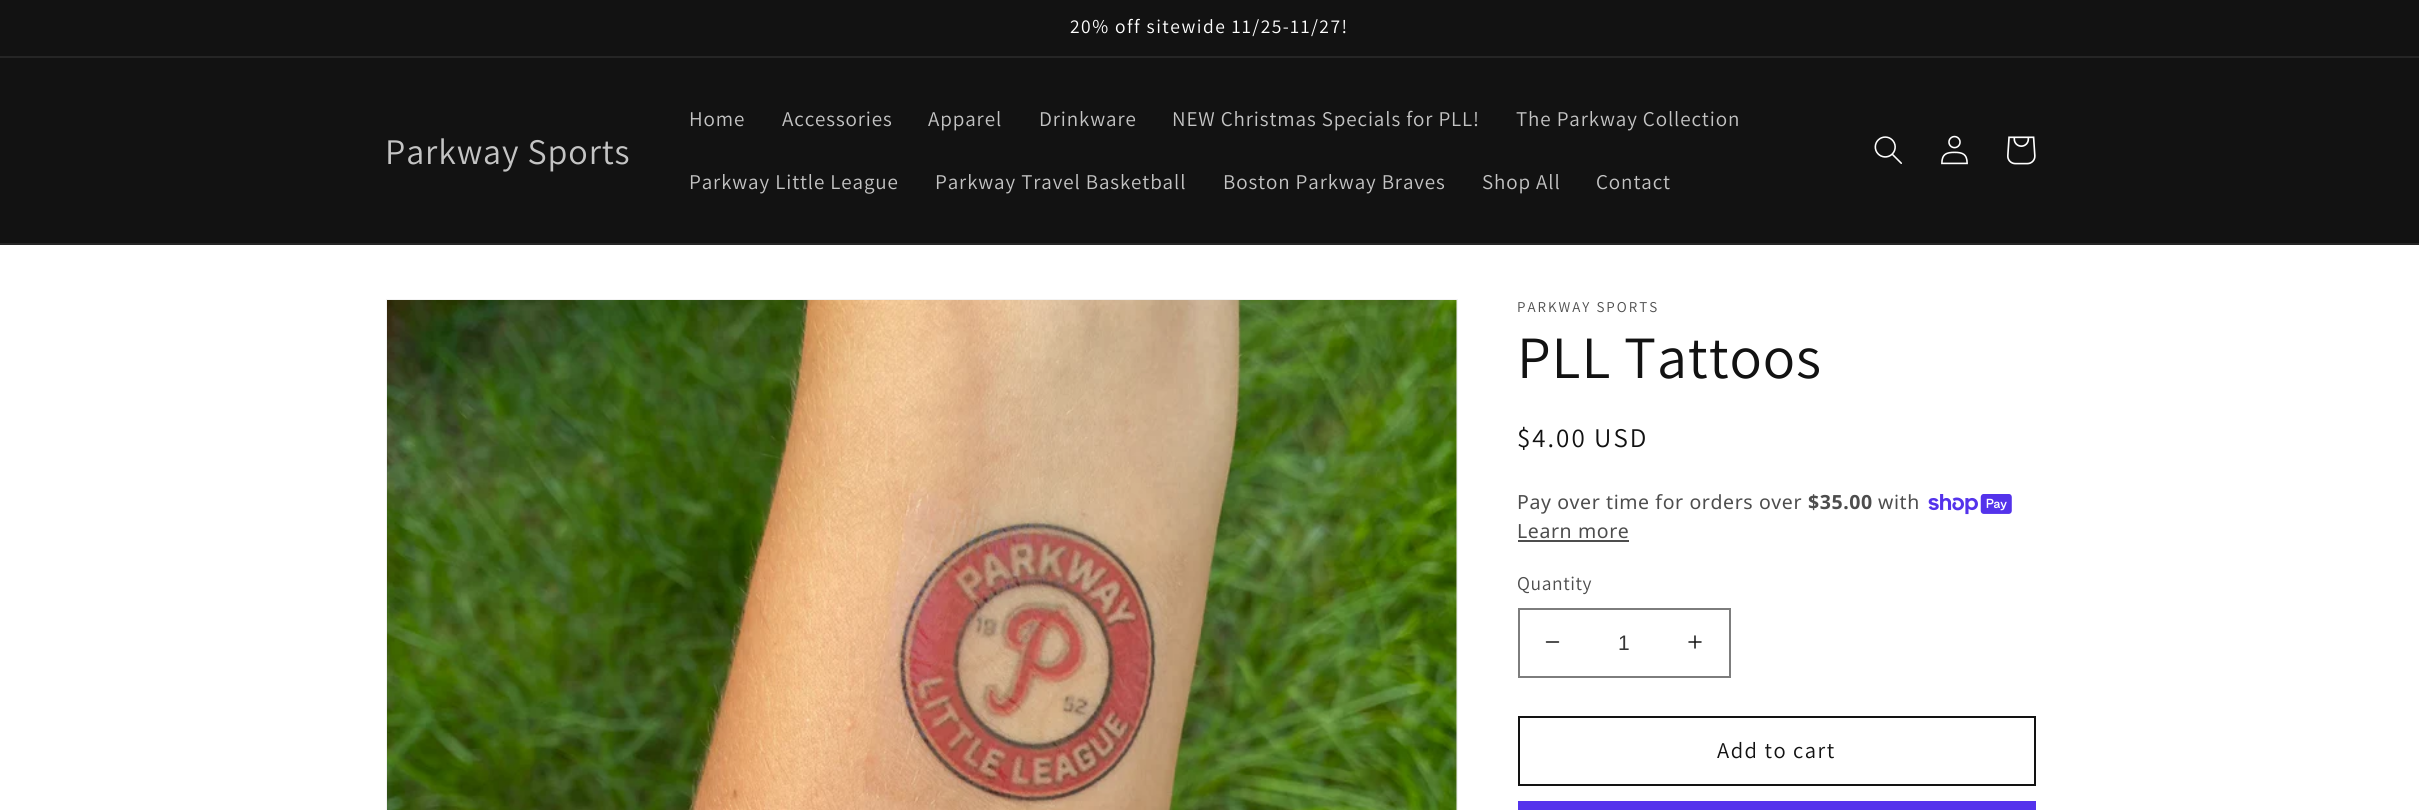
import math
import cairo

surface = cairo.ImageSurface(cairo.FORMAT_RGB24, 2419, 810)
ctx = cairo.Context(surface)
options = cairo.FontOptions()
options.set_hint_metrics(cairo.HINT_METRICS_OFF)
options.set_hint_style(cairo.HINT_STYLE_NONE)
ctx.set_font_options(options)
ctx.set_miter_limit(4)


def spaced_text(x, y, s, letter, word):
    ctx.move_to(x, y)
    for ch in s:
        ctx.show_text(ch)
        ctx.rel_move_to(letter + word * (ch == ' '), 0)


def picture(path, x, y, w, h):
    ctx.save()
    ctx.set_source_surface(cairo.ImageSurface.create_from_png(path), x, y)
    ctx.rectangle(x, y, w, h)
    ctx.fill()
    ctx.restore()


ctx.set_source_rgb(1, 1, 1)
ctx.paint()
ctx.set_source_rgb(0.071, 0.071, 0.071)
ctx.rectangle(0, 0, 2419, 56)
ctx.fill()
ctx.set_source_rgb(0.145, 0.145, 0.145)
ctx.rectangle(0, 56, 2419, 2)
ctx.fill()
ctx.select_font_face("Assistant")
ctx.set_font_size(19.5)
ctx.set_source_rgb(1, 1, 1)
spaced_text(1070, 33, "20% off sitewide 11/25-11/27!", 1.5, 0)
ctx.set_source_rgb(0.071, 0.071, 0.071)
ctx.rectangle(0, 58, 2419, 185)
ctx.fill()
ctx.set_source_rgb(0.145, 0.145, 0.145)
ctx.rectangle(0, 243, 2419, 2)
ctx.fill()
ctx.set_font_size(36)
ctx.set_source_rgb(0.769, 0.769, 0.769)
spaced_text(385, 164, "Parkway Sports", 0.9, 0)
ctx.set_font_size(21)
spaced_text(689, 126, "Home", 0.9, 0)
spaced_text(782, 126, "Accessories", 0.9, 0)
spaced_text(928, 126, "Apparel", 0.9, 0)
spaced_text(1039, 126, "Drinkware", 0.9, 0)
spaced_text(1172, 126, "NEW Christmas Specials for PLL!", 0.9, 0)
spaced_text(1516, 126, "The Parkway Collection", 0.9, 0)
spaced_text(689, 189, "Parkway Little League", 0.9, 0)
spaced_text(935, 189, "Parkway Travel Basketball", 0.9, 0)
spaced_text(1223, 189, "Boston Parkway Braves", 0.9, 0)
spaced_text(1482, 189, "Shop All", 0.9, 0)
spaced_text(1596, 189, "Contact", 0.9, 0)
picture("img1.png", 1874, 136, 28, 28)
picture("img2.png", 1941, 135, 27, 30)
picture("img3.png", 2007, 136, 29, 29)
ctx.rectangle(387, 300, 1070, 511)
ctx.set_source_rgb(0.953, 0.953, 0.953)
ctx.stroke()
picture("img4.png", 387, 300, 1070, 510)
ctx.set_font_size(15)
ctx.set_source_rgb(0.302, 0.302, 0.302)
spaced_text(1517, 312, "PARKWAY SPORTS", 2, 0)
ctx.set_font_size(60)
ctx.set_source_rgb(0.071, 0.071, 0.071)
spaced_text(1517, 378, "PLL Tattoos", 0.9, 0)
ctx.set_font_size(27)
spaced_text(1517, 447, "$4.00 USD", 2, 0)
ctx.select_font_face("Noto Sans")
ctx.set_font_size(19.5)
ctx.set_source_rgb(0.302, 0.302, 0.302)
spaced_text(1517, 509, "Pay over time for orders over", 0.6, 0)
ctx.select_font_face("Noto Sans", cairo.FONT_SLANT_NORMAL, cairo.FONT_WEIGHT_BOLD)
spaced_text(1808, 509, "$35.00", 0.6, 0)
ctx.select_font_face("Noto Sans")
spaced_text(1878, 509, "with", 0.6, 0)
picture("img5.png", 1928, 494, 84, 21)
spaced_text(1517, 538, "Learn more", 0.6, 0)
ctx.rectangle(1518, 540, 111, 2)
ctx.fill()
ctx.select_font_face("Assistant")
spaced_text(1517, 590, "Quantity", 0.6, 0)
picture("img6.png", 1545, 641, 15, 2)
picture("img7.png", 1688, 635, 14, 14)
ctx.rectangle(1519, 609, 211, 68)
ctx.set_source_rgb(0.49, 0.49, 0.49)
ctx.stroke()
ctx.select_font_face("Liberation Sans")
ctx.set_font_size(21)
ctx.set_source_rgb(0.212, 0.212, 0.212)
ctx.move_to(1618, 650)
ctx.show_text("1")
ctx.rectangle(1519, 717, 516, 68)
ctx.set_source_rgb(0.071, 0.071, 0.071)
ctx.stroke()
ctx.select_font_face("Assistant")
ctx.set_font_size(22.5)
spaced_text(1717, 758, "Add to cart", 1.5, 0)
ctx.set_source_rgb(0.329, 0.2, 0.922)
ctx.rectangle(1518, 801, 518, 9)
ctx.fill()
surface.write_to_png("page.png")
